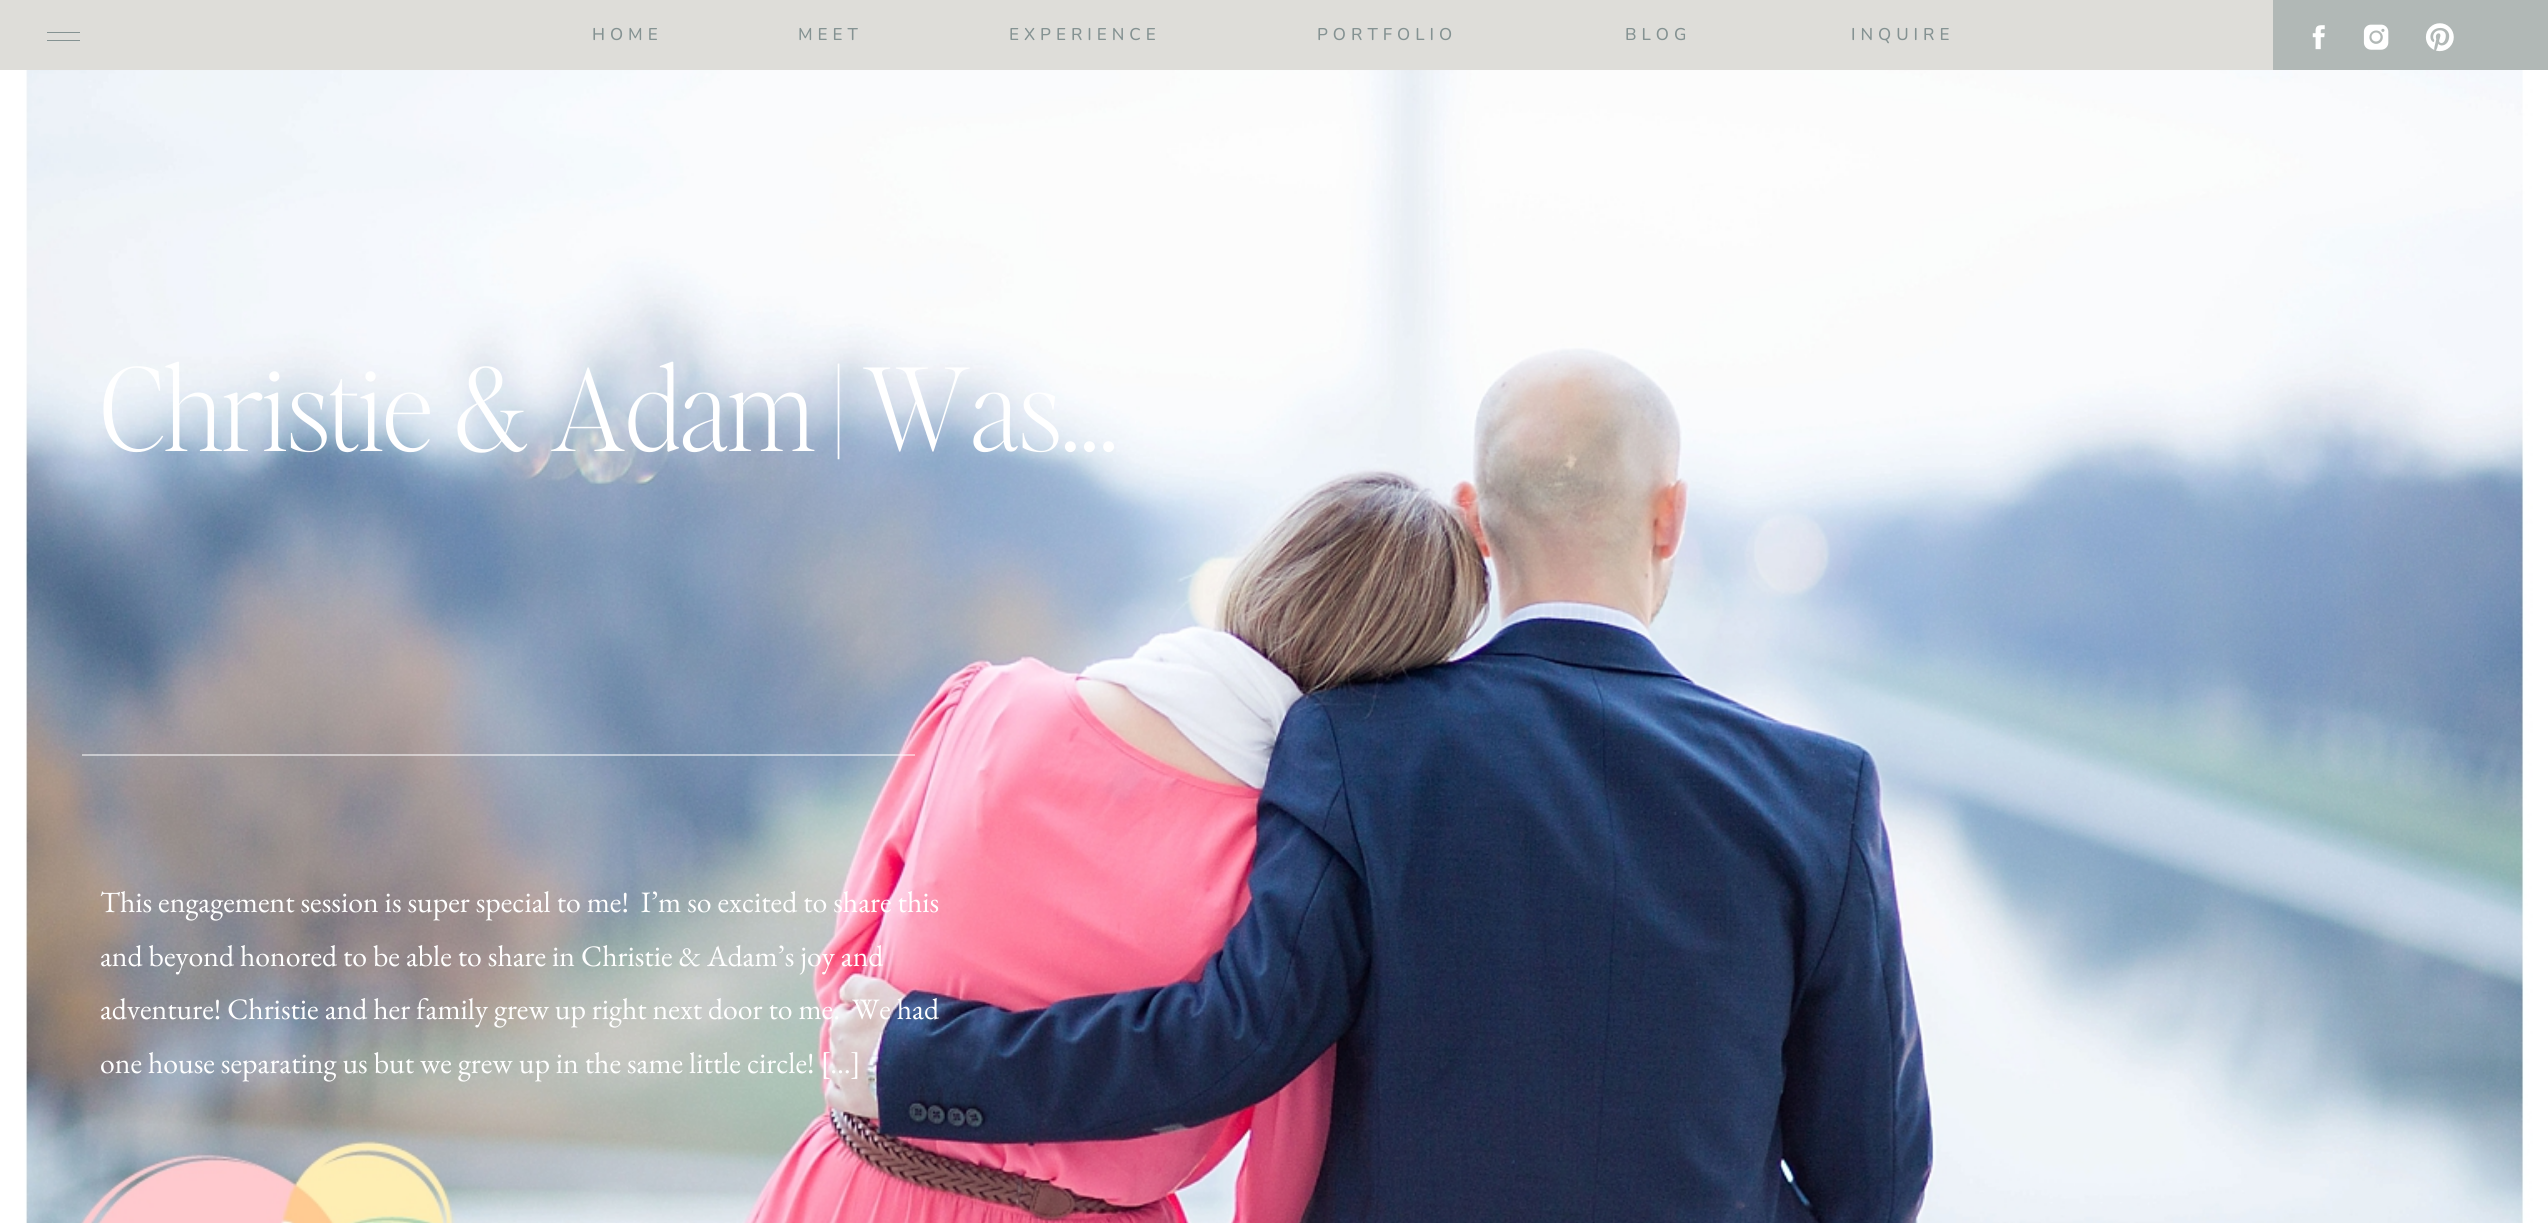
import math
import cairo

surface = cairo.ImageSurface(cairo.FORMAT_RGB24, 2548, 1223)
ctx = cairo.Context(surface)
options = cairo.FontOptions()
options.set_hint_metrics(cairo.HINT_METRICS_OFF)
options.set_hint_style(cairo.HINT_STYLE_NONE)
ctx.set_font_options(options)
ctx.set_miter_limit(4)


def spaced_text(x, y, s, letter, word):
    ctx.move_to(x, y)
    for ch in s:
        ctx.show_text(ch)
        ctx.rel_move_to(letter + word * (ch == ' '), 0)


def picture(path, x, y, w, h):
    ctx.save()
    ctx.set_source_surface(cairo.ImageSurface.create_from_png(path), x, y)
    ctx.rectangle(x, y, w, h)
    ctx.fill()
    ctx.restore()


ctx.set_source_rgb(1, 1, 1)
ctx.paint()
ctx.set_source_rgb(0.871, 0.867, 0.851)
ctx.rectangle(0, 0, 2273, 70)
ctx.fill()
ctx.set_source_rgb(0.694, 0.722, 0.714)
ctx.rectangle(2273, 0, 275, 70)
ctx.fill()
ctx.set_source_rgb(0.518, 0.573, 0.573)
ctx.rectangle(47, 32, 33, 1)
ctx.fill()
ctx.rectangle(47, 40, 33, 1)
ctx.fill()
ctx.select_font_face("Nunito ExtraLight")
ctx.set_font_size(17)
spaced_text(592, 40, "HOME", 5, 0)
spaced_text(798, 40, "MEET", 5, 0)
spaced_text(1009, 40, "EXPERIENCE", 5, 0)
spaced_text(1317, 40, "PORTFOLIO", 5, 0)
spaced_text(1625, 40, "BLOG", 5, 0)
spaced_text(1851, 40, "INQUIRE", 5, 0)
picture("img1.png", 2312, 25, 13, 25)
picture("img2.png", 2363, 24, 26, 26)
picture("img3.png", 2425, 23, 29, 29)
picture("img4.png", 0, 70, 2548, 1153)
ctx.select_font_face("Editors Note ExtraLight")
ctx.set_font_size(114.75)
ctx.set_source_rgb(1, 1, 1)
ctx.move_to(100, 451)
ctx.show_text("Christie & Adam | Was…")
ctx.set_source_rgba(1, 1, 1, 0.5)
ctx.rectangle(82, 754, 833, 2)
ctx.fill()
ctx.select_font_face("EB Garamond")
ctx.set_font_size(29.75)
ctx.set_source_rgb(1, 1, 1)
ctx.move_to(100, 912)
ctx.show_text("This engagement session is super special to me!  I’m so excited to share this")
ctx.move_to(100, 966)
ctx.show_text("and beyond honored to be able to share in Christie & Adam’s joy and")
ctx.move_to(100, 1019)
ctx.show_text("adventure! Christie and her family grew up right next door to me.  We had")
ctx.move_to(100, 1073)
ctx.show_text("one house separating us but we grew up in the same little circle! […]")
surface.write_to_png("page.png")
